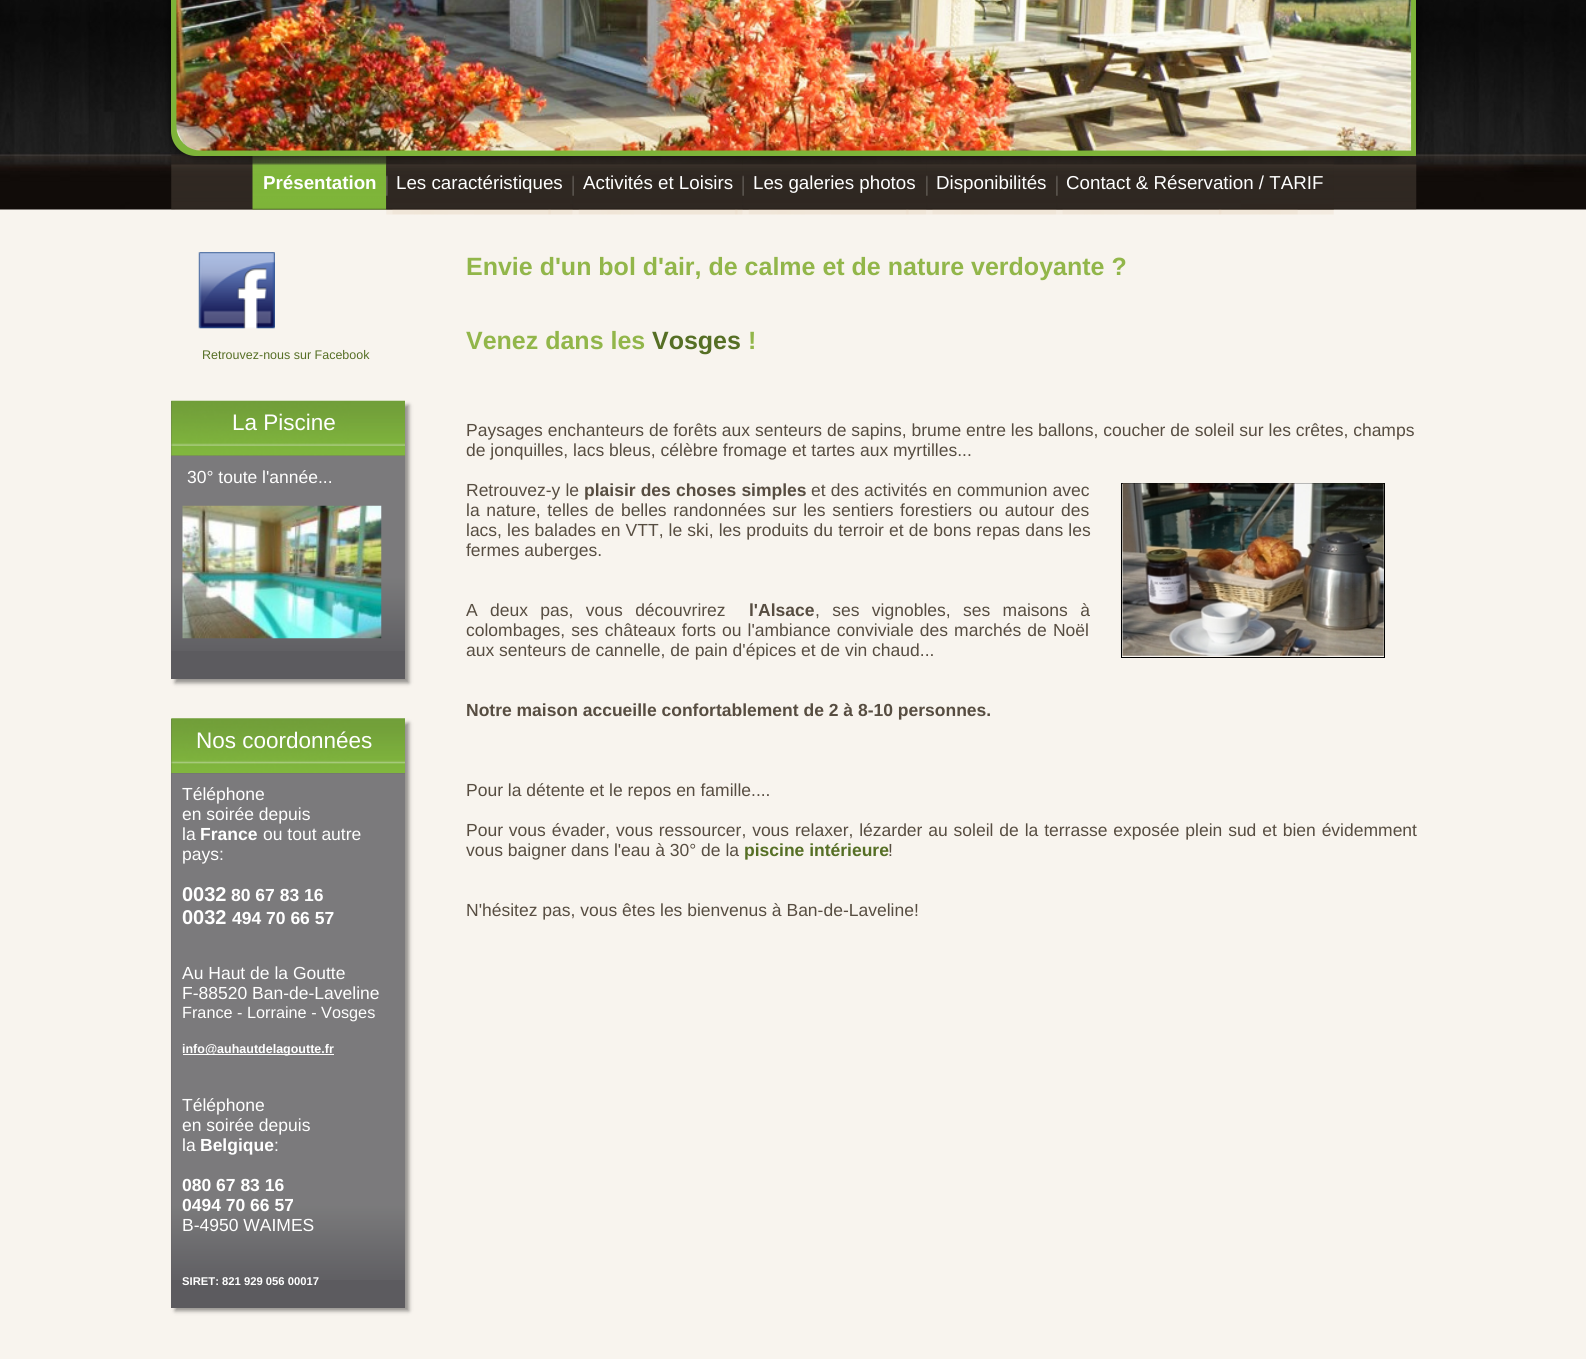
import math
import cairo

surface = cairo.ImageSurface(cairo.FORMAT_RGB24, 1586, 1359)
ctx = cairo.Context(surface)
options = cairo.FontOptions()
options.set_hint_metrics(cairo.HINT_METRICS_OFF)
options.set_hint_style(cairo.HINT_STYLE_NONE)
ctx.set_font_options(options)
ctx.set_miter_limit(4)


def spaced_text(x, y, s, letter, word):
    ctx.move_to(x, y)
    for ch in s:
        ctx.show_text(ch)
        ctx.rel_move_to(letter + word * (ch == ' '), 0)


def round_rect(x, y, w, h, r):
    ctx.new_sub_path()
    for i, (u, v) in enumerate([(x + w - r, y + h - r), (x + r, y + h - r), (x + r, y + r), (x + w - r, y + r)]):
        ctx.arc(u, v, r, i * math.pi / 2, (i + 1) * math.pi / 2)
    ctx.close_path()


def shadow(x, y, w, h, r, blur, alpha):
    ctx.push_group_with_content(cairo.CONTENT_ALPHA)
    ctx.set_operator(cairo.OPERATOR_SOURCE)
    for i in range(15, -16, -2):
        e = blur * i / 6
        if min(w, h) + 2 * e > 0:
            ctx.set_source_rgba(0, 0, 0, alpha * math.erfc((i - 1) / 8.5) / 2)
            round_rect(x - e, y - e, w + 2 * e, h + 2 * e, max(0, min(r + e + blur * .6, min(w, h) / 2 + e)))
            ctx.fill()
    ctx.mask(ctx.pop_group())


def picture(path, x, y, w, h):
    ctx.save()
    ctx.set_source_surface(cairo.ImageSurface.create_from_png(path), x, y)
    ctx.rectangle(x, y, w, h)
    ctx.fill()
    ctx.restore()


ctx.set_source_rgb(0.969, 0.957, 0.933)
ctx.paint()
picture("img1.png", 0, 0, 1586, 210)
picture("img3.png", 171, 154, 1246, 56)
picture("img4.png", 252, 156, 135, 54)
picture("img5.png", 386, 156, 187, 59)
picture("img6.png", 572, 156, 171, 59)
picture("img7.png", 742, 156, 185, 59)
picture("img8.png", 926, 156, 131, 59)
picture("img9.png", 1056, 156, 278, 59)
ctx.set_source_rgb(0, 0, 0)
shadow(171, -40, 1245, 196, 25, 5, 0.7)
ctx.set_source_rgb(0.494, 0.706, 0.224)
ctx.new_path()
ctx.move_to(171, -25)
ctx.line_to(1391, -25)
ctx.curve_to(1405, -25, 1416, -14, 1416, 0)
ctx.line_to(1416, 156)
ctx.line_to(196, 156)
ctx.curve_to(182, 156, 171, 145, 171, 131)
ctx.close_path()
ctx.fill()
picture("img2.png", 176, 0, 1236, 151)
ctx.select_font_face("Liberation Sans", cairo.FONT_SLANT_NORMAL, cairo.FONT_WEIGHT_BOLD)
ctx.set_font_size(18.75)
ctx.set_source_rgb(1, 1, 1)
ctx.move_to(263, 189)
ctx.show_text("Présentation")
ctx.select_font_face("Liberation Sans")
ctx.move_to(396, 189)
ctx.show_text("Les caractéristiques")
ctx.move_to(583, 189)
ctx.show_text("Activités et Loisirs")
ctx.move_to(753, 189)
ctx.show_text("Les galeries photos")
ctx.move_to(936, 189)
ctx.show_text("Disponibilités")
ctx.move_to(1066, 189)
ctx.show_text("Contact & Réservation / TARIF")
picture("img10.png", 198, 252, 77, 77)
ctx.set_font_size(12.5)
ctx.set_source_rgb(0.337, 0.435, 0.145)
ctx.move_to(202, 359)
ctx.show_text("Retrouvez-nous sur Facebook")
ctx.set_source_rgb(0, 0, 0)
shadow(175, 405, 234, 278, 0, 2, 0.4)
ctx.set_source_rgb(0.361, 0.357, 0.373)
ctx.rectangle(171, 401, 234, 278)
ctx.fill()
picture("img11.png", 171, 400, 234, 56)
ctx.set_font_size(22.5)
ctx.set_source_rgb(1, 1, 1)
ctx.move_to(232, 430)
ctx.show_text("La Piscine")
picture("img12.png", 171, 455, 234, 196)
ctx.set_font_size(17.5)
ctx.move_to(187, 483)
ctx.show_text("30° toute l'année...")
picture("img13.png", 182, 505, 200, 134)
ctx.set_source_rgb(0, 0, 0)
shadow(175, 723, 234, 588, 0, 2, 0.4)
ctx.set_source_rgb(0.361, 0.357, 0.373)
ctx.rectangle(171, 719, 234, 589)
ctx.fill()
picture("img14.png", 171, 718, 234, 56)
ctx.set_font_size(22.5)
ctx.set_source_rgb(1, 1, 1)
ctx.move_to(196, 748)
ctx.show_text("Nos coordonnées")
picture("img15.png", 171, 773, 234, 507)
ctx.set_font_size(17.5)
ctx.move_to(182, 800)
ctx.show_text("Téléphone")
ctx.move_to(182, 820)
ctx.show_text("en soirée depuis")
ctx.move_to(182, 840)
ctx.show_text("la")
ctx.select_font_face("Liberation Sans", cairo.FONT_SLANT_NORMAL, cairo.FONT_WEIGHT_BOLD)
ctx.move_to(200, 840)
ctx.show_text("France")
ctx.select_font_face("Liberation Sans")
ctx.move_to(263, 840)
ctx.show_text("ou tout autre")
ctx.move_to(182, 860)
ctx.show_text("pays:")
ctx.select_font_face("Liberation Sans", cairo.FONT_SLANT_NORMAL, cairo.FONT_WEIGHT_BOLD)
ctx.set_font_size(20)
ctx.move_to(182, 901)
ctx.show_text("0032")
ctx.set_font_size(17.5)
ctx.move_to(231, 901)
ctx.show_text("80 67 83 16")
ctx.set_font_size(20)
ctx.move_to(182, 924)
ctx.show_text("0032")
ctx.set_font_size(17.5)
ctx.move_to(232, 924)
ctx.show_text("494 70 66 57")
ctx.select_font_face("Liberation Sans")
ctx.move_to(182, 979)
ctx.show_text("Au Haut de la Goutte")
ctx.move_to(182, 999)
ctx.show_text("F-88520 Ban-de-Laveline")
ctx.set_font_size(16.25)
ctx.move_to(182, 1018)
ctx.show_text("France - Lorraine - Vosges")
ctx.rectangle(183, 1054, 151, 1)
ctx.fill()
ctx.select_font_face("Liberation Sans", cairo.FONT_SLANT_NORMAL, cairo.FONT_WEIGHT_BOLD)
ctx.set_font_size(12.5)
ctx.move_to(182, 1053)
ctx.show_text("info@auhautdelagoutte.fr")
ctx.select_font_face("Liberation Sans")
ctx.set_font_size(17.5)
ctx.move_to(182, 1111)
ctx.show_text("Téléphone")
ctx.move_to(182, 1131)
ctx.show_text("en soirée depuis")
ctx.move_to(182, 1151)
ctx.show_text("la")
ctx.select_font_face("Liberation Sans", cairo.FONT_SLANT_NORMAL, cairo.FONT_WEIGHT_BOLD)
ctx.move_to(200, 1151)
ctx.show_text("Belgique")
ctx.select_font_face("Liberation Sans")
ctx.move_to(274, 1151)
ctx.show_text(":")
ctx.select_font_face("Liberation Sans", cairo.FONT_SLANT_NORMAL, cairo.FONT_WEIGHT_BOLD)
ctx.move_to(182, 1191)
ctx.show_text("080 67 83 16")
ctx.move_to(182, 1211)
ctx.show_text("0494 70 66 57")
ctx.select_font_face("Liberation Sans")
ctx.move_to(182, 1231)
ctx.show_text("B-4950 WAIMES")
ctx.select_font_face("Liberation Sans", cairo.FONT_SLANT_NORMAL, cairo.FONT_WEIGHT_BOLD)
ctx.set_font_size(11.25)
ctx.move_to(182, 1285)
ctx.show_text("SIRET: 821 929 056 00017")
ctx.set_font_size(25)
ctx.set_source_rgb(0.573, 0.714, 0.29)
ctx.move_to(466, 275)
ctx.show_text("Envie d'un bol d'air, de calme et de nature verdoyante ?")
ctx.move_to(466, 349)
ctx.show_text("Venez dans les")
ctx.set_source_rgb(0.337, 0.435, 0.145)
ctx.move_to(652, 349)
ctx.show_text("Vosges")
ctx.set_source_rgb(0.573, 0.714, 0.29)
ctx.move_to(748, 349)
ctx.show_text("!")
ctx.select_font_face("Liberation Sans")
ctx.set_font_size(17.5)
ctx.set_source_rgb(0.341, 0.302, 0.255)
ctx.move_to(466, 436)
ctx.show_text("Paysages enchanteurs de forêts aux senteurs de sapins, brume entre les ballons, coucher de soleil sur les crêtes, champs")
ctx.move_to(466, 456)
ctx.show_text("de jonquilles, lacs bleus, célèbre fromage et tartes aux myrtilles...")
spaced_text(466, 496, "Retrouvez-y le", 0, 0.25)
ctx.select_font_face("Liberation Sans", cairo.FONT_SLANT_NORMAL, cairo.FONT_WEIGHT_BOLD)
spaced_text(584, 496, "plaisir des choses simples", 0, 0.25)
ctx.select_font_face("Liberation Sans")
spaced_text(811, 496, "et des activités en communion avec", 0, 0.25)
spaced_text(466, 516, "la nature, telles de belles randonnées sur les sentiers forestiers ou autour des", 0, 1.75)
spaced_text(466, 536, "lacs, les balades en VTT, le ski, les produits du terroir et de bons repas dans les", 0, 0.25)
ctx.move_to(466, 556)
ctx.show_text("fermes auberges.")
ctx.rectangle(1121.5, 483.5, 263, 174)
ctx.set_source_rgb(0, 0, 0)
ctx.set_line_width(1)
ctx.stroke()
picture("img16.png", 1122, 483, 262, 173)
ctx.set_source_rgb(0.341, 0.302, 0.255)
spaced_text(466, 616, "A deux pas, vous découvrirez", 0, 7.5)
ctx.select_font_face("Liberation Sans", cairo.FONT_SLANT_NORMAL, cairo.FONT_WEIGHT_BOLD)
ctx.move_to(749, 616)
ctx.show_text("l'Alsace")
ctx.select_font_face("Liberation Sans")
spaced_text(815, 616, ", ses vignobles, ses maisons à", 0, 7.5)
spaced_text(466, 636, "colombages, ses châteaux forts ou l'ambiance conviviale des marchés de Noël", 0, 1.25)
ctx.move_to(466, 656)
ctx.show_text("aux senteurs de cannelle, de pain d'épices et de vin chaud...")
ctx.select_font_face("Liberation Sans", cairo.FONT_SLANT_NORMAL, cairo.FONT_WEIGHT_BOLD)
ctx.move_to(466, 716)
ctx.show_text("Notre maison accueille confortablement de 2 à 8-10 personnes.")
ctx.select_font_face("Liberation Sans")
ctx.move_to(466, 796)
ctx.show_text("Pour la détente et le repos en famille....")
spaced_text(466, 836, "Pour vous évader, vous ressourcer, vous relaxer, lézarder au soleil de la terrasse exposée plein sud et bien évidemment", 0, 1)
ctx.move_to(466, 856)
ctx.show_text("vous baigner dans l'eau à 30° de la")
ctx.select_font_face("Liberation Sans", cairo.FONT_SLANT_NORMAL, cairo.FONT_WEIGHT_BOLD)
ctx.set_source_rgb(0.337, 0.435, 0.145)
ctx.move_to(744, 856)
ctx.show_text("piscine intérieure")
ctx.select_font_face("Liberation Sans")
ctx.set_source_rgb(0.341, 0.302, 0.255)
ctx.move_to(888, 856)
ctx.show_text("!")
ctx.move_to(466, 916)
ctx.show_text("N'hésitez pas, vous êtes les bienvenus à Ban-de-Laveline!")
surface.write_to_png("page.png")
